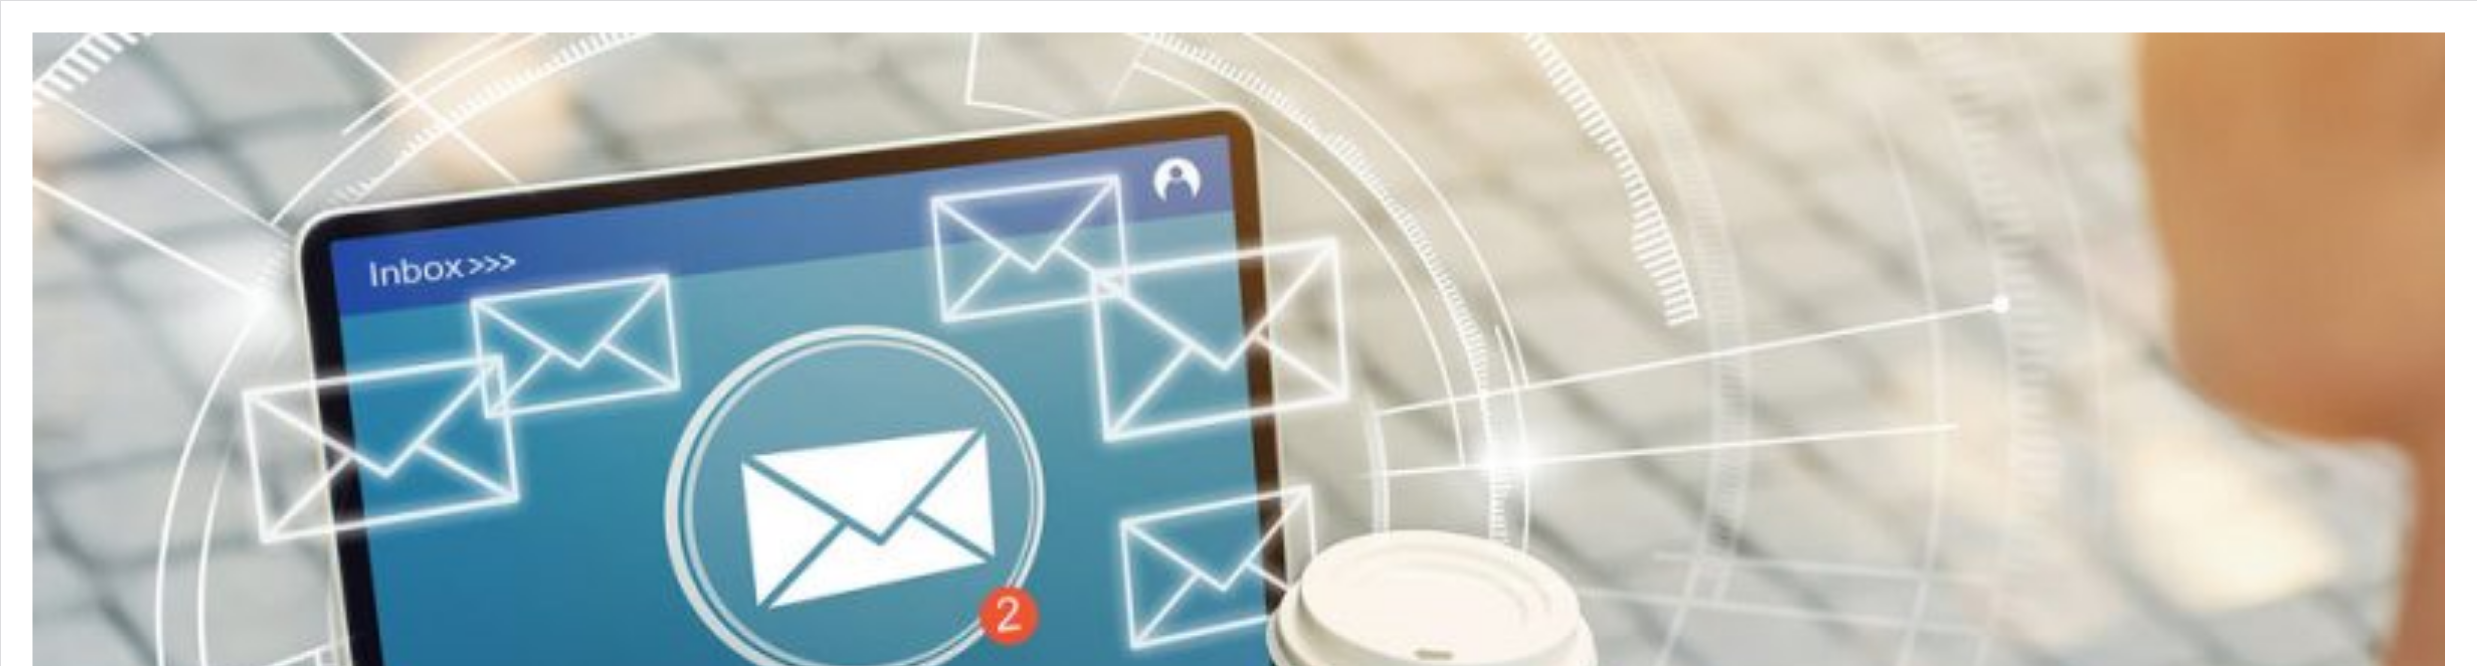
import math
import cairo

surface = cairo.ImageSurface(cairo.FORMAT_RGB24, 2477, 666)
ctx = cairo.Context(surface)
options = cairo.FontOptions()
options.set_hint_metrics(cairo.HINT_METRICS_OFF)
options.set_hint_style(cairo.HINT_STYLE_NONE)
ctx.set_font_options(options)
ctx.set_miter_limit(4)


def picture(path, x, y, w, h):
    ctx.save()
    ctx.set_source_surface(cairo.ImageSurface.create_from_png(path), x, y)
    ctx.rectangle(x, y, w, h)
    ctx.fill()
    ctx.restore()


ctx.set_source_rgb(1, 1, 1)
ctx.paint()
ctx.rectangle(0.5, 0.5, 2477, 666)
ctx.set_source_rgb(0.863, 0.863, 0.871)
ctx.set_line_width(1)
ctx.stroke()
picture("img1.png", 32, 32, 2413, 634)
surface.write_to_png("page.png")
